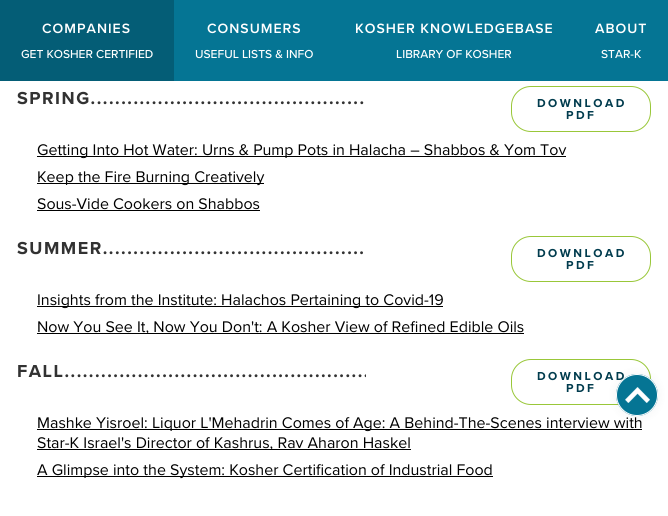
import math
import cairo

surface = cairo.ImageSurface(cairo.FORMAT_RGB24, 668, 516)
ctx = cairo.Context(surface)
options = cairo.FontOptions()
options.set_hint_metrics(cairo.HINT_METRICS_OFF)
options.set_hint_style(cairo.HINT_STYLE_NONE)
ctx.set_font_options(options)
ctx.set_miter_limit(4)


def spaced_text(x, y, s, letter, word):
    ctx.move_to(x, y)
    for ch in s:
        ctx.show_text(ch)
        ctx.rel_move_to(letter + word * (ch == ' '), 0)


def round_rect(x, y, w, h, r):
    ctx.new_sub_path()
    for i, (u, v) in enumerate([(x + w - r, y + h - r), (x + r, y + h - r), (x + r, y + r), (x + w - r, y + r)]):
        ctx.arc(u, v, r, i * math.pi / 2, (i + 1) * math.pi / 2)
    ctx.close_path()


def shadow(x, y, w, h, r, blur, alpha):
    ctx.push_group_with_content(cairo.CONTENT_ALPHA)
    ctx.set_operator(cairo.OPERATOR_SOURCE)
    for i in range(15, -16, -2):
        e = blur * i / 6
        if min(w, h) + 2 * e > 0:
            ctx.set_source_rgba(0, 0, 0, alpha * math.erfc((i - 1) / 8.5) / 2)
            round_rect(x - e, y - e, w + 2 * e, h + 2 * e, max(0, min(r + e + blur * .6, min(w, h) / 2 + e)))
            ctx.fill()
    ctx.mask(ctx.pop_group())


def picture(path, x, y, w, h):
    ctx.save()
    ctx.set_source_surface(cairo.ImageSurface.create_from_png(path), x, y)
    ctx.rectangle(x, y, w, h)
    ctx.fill()
    ctx.restore()


ctx.set_source_rgb(1, 1, 1)
ctx.paint()
ctx.set_source_rgb(0.02, 0.459, 0.58)
ctx.rectangle(174, 0, 494, 81)
ctx.fill()
ctx.set_source_rgb(0.016, 0.365, 0.463)
ctx.rectangle(0, 0, 174, 81)
ctx.fill()
ctx.select_font_face("Proxima Nova SemiBold")
ctx.set_font_size(14)
ctx.set_source_rgb(1, 1, 1)
spaced_text(42, 33, "COMPANIES", 1, 0)
ctx.select_font_face("Proxima Nova Medium")
ctx.set_font_size(12)
ctx.move_to(21, 58)
ctx.show_text("GET KOSHER CERTIFIED")
ctx.select_font_face("Proxima Nova SemiBold")
ctx.set_font_size(14)
spaced_text(207, 33, "CONSUMERS", 1, 0)
ctx.select_font_face("Proxima Nova Medium")
ctx.set_font_size(12)
ctx.move_to(195, 58)
ctx.show_text("USEFUL LISTS & INFO")
ctx.select_font_face("Proxima Nova SemiBold")
ctx.set_font_size(14)
spaced_text(355, 33, "KOSHER KNOWLEDGEBASE", 1, 0)
ctx.select_font_face("Proxima Nova Medium")
ctx.set_font_size(12)
ctx.move_to(396, 58)
ctx.show_text("LIBRARY OF KOSHER")
ctx.select_font_face("Proxima Nova SemiBold")
ctx.set_font_size(14)
spaced_text(595, 33, "ABOUT", 1, 0)
ctx.select_font_face("Proxima Nova Medium")
ctx.set_font_size(12)
ctx.move_to(601, 58)
ctx.show_text("STAR-K")
ctx.select_font_face("Proxima Nova", cairo.FONT_SLANT_NORMAL, cairo.FONT_WEIGHT_BOLD)
ctx.set_font_size(18)
ctx.set_source_rgb(0.196, 0.196, 0.196)
spaced_text(17, 104, "SPRING.............................................", 1.5, 0)
round_rect(511.5, 86.5, 139, 45, 19.5)
ctx.set_source_rgb(0.6, 0.78, 0.224)
ctx.set_line_width(1)
ctx.stroke()
ctx.set_font_size(12)
ctx.set_source_rgb(0.004, 0.235, 0.306)
spaced_text(537, 107, "DOWNLOAD", 2.5, 0)
spaced_text(566, 119, "PDF", 2.5, 0)
ctx.set_source_rgb(0, 0, 0)
ctx.rectangle(37, 156, 529, 1)
ctx.fill()
ctx.select_font_face("Proxima Nova")
ctx.set_font_size(16)
ctx.move_to(37, 155)
ctx.show_text("Getting Into Hot Water: Urns & Pump Pots in Halacha – Shabbos & Yom Tov")
ctx.rectangle(37, 183, 227, 1)
ctx.fill()
ctx.move_to(37, 182)
ctx.show_text("Keep the Fire Burning Creatively")
ctx.move_to(37, 209)
ctx.show_text("Sous-Vide Cookers on Shabbos")
ctx.rectangle(37, 210, 223, 1)
ctx.fill()
ctx.select_font_face("Proxima Nova", cairo.FONT_SLANT_NORMAL, cairo.FONT_WEIGHT_BOLD)
ctx.set_font_size(18)
ctx.set_source_rgb(0.196, 0.196, 0.196)
spaced_text(17, 254, "SUMMER...........................................", 1.5, 0)
round_rect(511.5, 236.5, 139, 45, 19.5)
ctx.set_source_rgb(0.6, 0.78, 0.224)
ctx.stroke()
ctx.set_font_size(12)
ctx.set_source_rgb(0.004, 0.235, 0.306)
spaced_text(537, 257, "DOWNLOAD", 2.5, 0)
spaced_text(566, 269, "PDF", 2.5, 0)
ctx.set_source_rgb(0, 0, 0)
ctx.rectangle(37, 306, 406, 1)
ctx.fill()
ctx.select_font_face("Proxima Nova")
ctx.set_font_size(16)
ctx.move_to(37, 305)
ctx.show_text("Insights from the Institute: Halachos Pertaining to Covid-19")
ctx.rectangle(37, 333, 487, 1)
ctx.fill()
ctx.move_to(37, 332)
ctx.show_text("Now You See It, Now You Don't: A Kosher View of Refined Edible Oils")
ctx.save()
ctx.rectangle(17, 344, 349, 39)
ctx.clip()
ctx.select_font_face("Proxima Nova", cairo.FONT_SLANT_NORMAL, cairo.FONT_WEIGHT_BOLD)
ctx.set_font_size(18)
ctx.set_source_rgb(0.196, 0.196, 0.196)
spaced_text(17, 377, "FALL..................................................", 1.5, 0)
ctx.restore()
round_rect(511.5, 359.5, 139, 45, 19.5)
ctx.set_source_rgb(0.6, 0.78, 0.224)
ctx.stroke()
ctx.select_font_face("Proxima Nova", cairo.FONT_SLANT_NORMAL, cairo.FONT_WEIGHT_BOLD)
ctx.set_font_size(12)
ctx.set_source_rgb(0.004, 0.235, 0.306)
spaced_text(537, 380, "DOWNLOAD", 2.5, 0)
spaced_text(566, 392, "PDF", 2.5, 0)
ctx.set_source_rgb(0, 0, 0)
ctx.rectangle(37, 429, 605, 1)
ctx.fill()
ctx.select_font_face("Proxima Nova")
ctx.set_font_size(16)
ctx.move_to(37, 428)
ctx.show_text("Mashke Yisroel: Liquor L'Mehadrin Comes of Age: A Behind-The-Scenes interview with")
ctx.rectangle(37, 449, 374, 1)
ctx.fill()
ctx.move_to(37, 448)
ctx.show_text("Star-K Israel's Director of Kashrus, Rav Aharon Haskel")
ctx.rectangle(37, 476, 456, 1)
ctx.fill()
ctx.move_to(37, 475)
ctx.show_text("A Glimpse into the System: Kosher Certification of Industrial Food")
ctx.set_source_rgb(0, 0, 0)
shadow(616, 374, 42, 42, 21, 5, 0.05)
ctx.set_source_rgb(0.02, 0.459, 0.58)
ctx.arc(637, 395, 21, 0, 2 * math.pi)
ctx.fill()
picture("img1.png", 625, 387, 25, 16)
ctx.arc(637, 395, 20.5, 0, 2 * math.pi)
ctx.set_source_rgb(1, 1, 1)
ctx.stroke()
surface.write_to_png("page.png")
